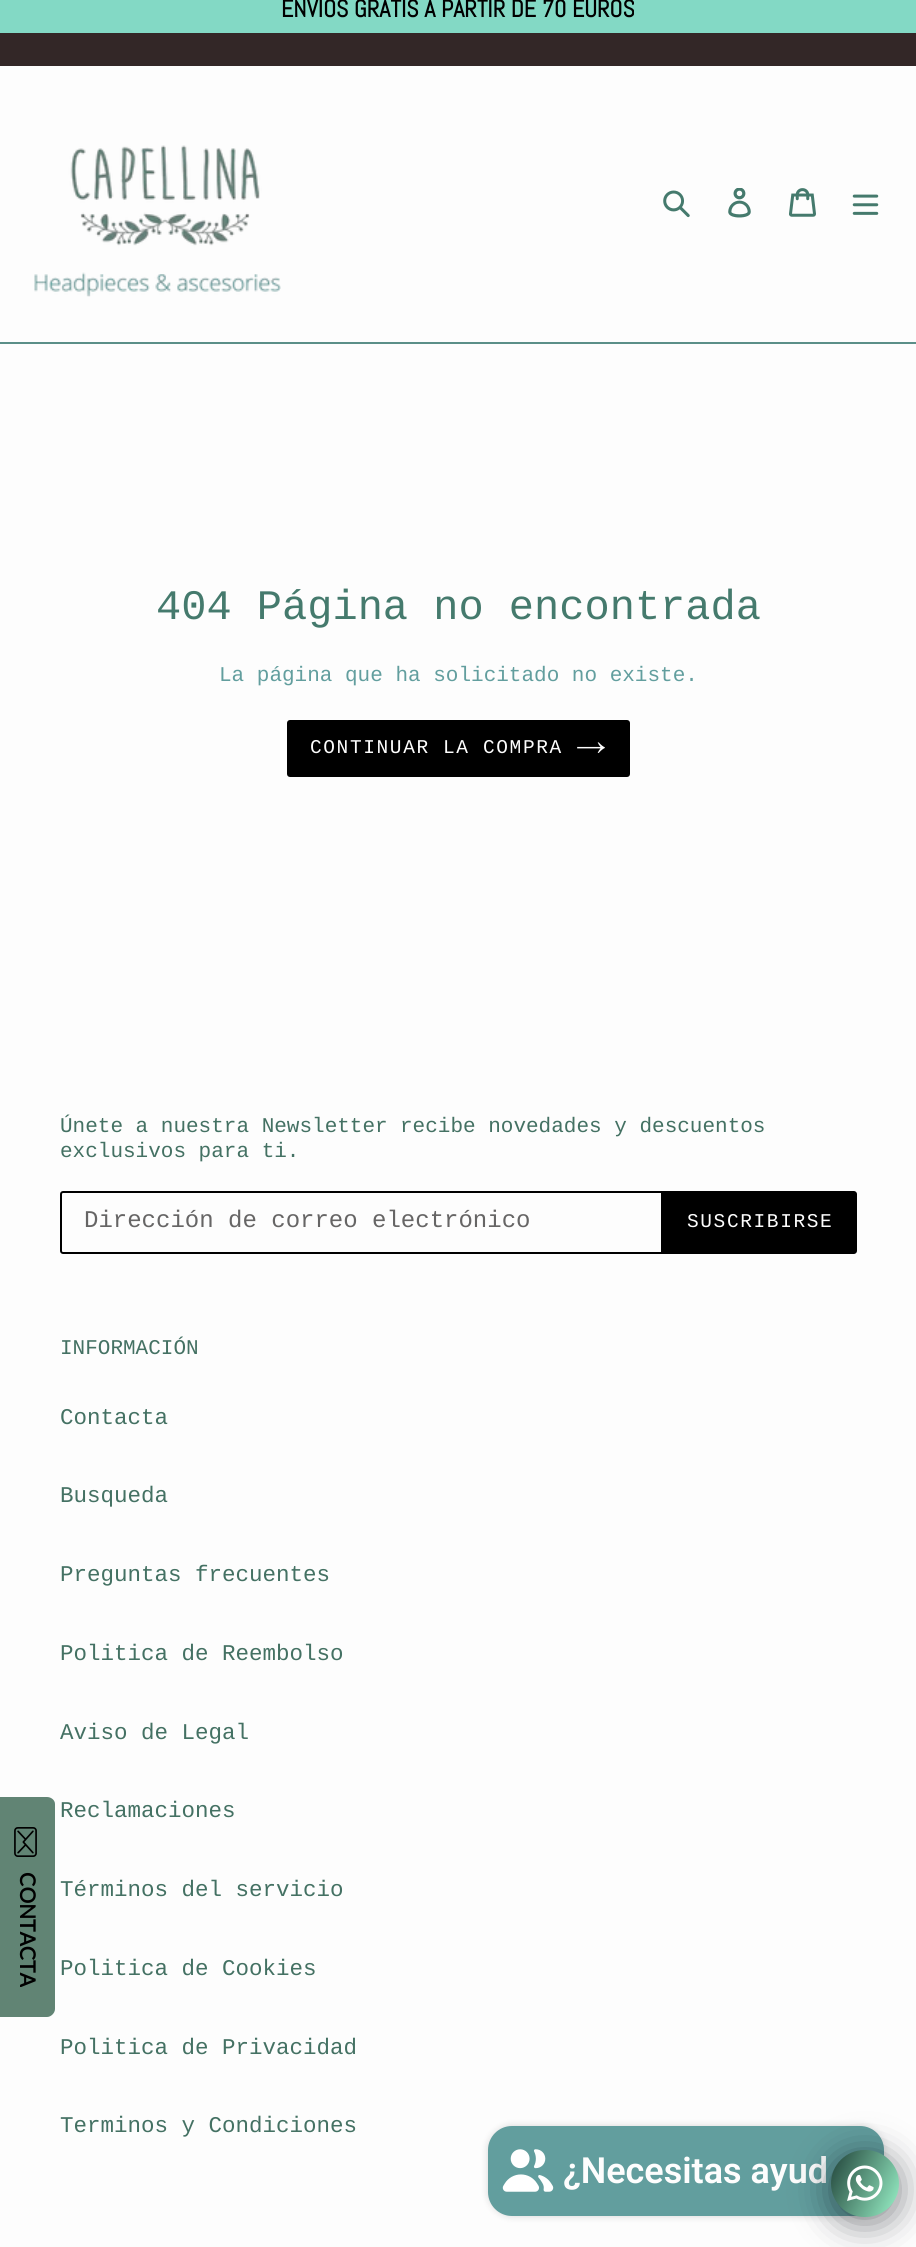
import math
import cairo

surface = cairo.ImageSurface(cairo.FORMAT_RGB24, 916, 2247)
ctx = cairo.Context(surface)
options = cairo.FontOptions()
options.set_hint_metrics(cairo.HINT_METRICS_OFF)
options.set_hint_style(cairo.HINT_STYLE_NONE)
ctx.set_font_options(options)
ctx.set_miter_limit(4)


def spaced_text(x, y, s, letter, word):
    ctx.move_to(x, y)
    for ch in s:
        ctx.show_text(ch)
        ctx.rel_move_to(letter + word * (ch == ' '), 0)


def round_rect(x, y, w, h, r):
    ctx.new_sub_path()
    for i, (u, v) in enumerate([(x + w - r, y + h - r), (x + r, y + h - r), (x + r, y + r), (x + w - r, y + r)]):
        ctx.arc(u, v, r, i * math.pi / 2, (i + 1) * math.pi / 2)
    ctx.close_path()


def shadow(x, y, w, h, r, blur, alpha):
    ctx.push_group_with_content(cairo.CONTENT_ALPHA)
    ctx.set_operator(cairo.OPERATOR_SOURCE)
    for i in range(15, -16, -2):
        e = blur * i / 6
        if min(w, h) + 2 * e > 0:
            ctx.set_source_rgba(0, 0, 0, alpha * math.erfc((i - 1) / 8.5) / 2)
            round_rect(x - e, y - e, w + 2 * e, h + 2 * e, max(0, min(r + e + blur * .6, min(w, h) / 2 + e)))
            ctx.fill()
    ctx.mask(ctx.pop_group())


def picture(path, x, y, w, h):
    ctx.save()
    ctx.set_source_surface(cairo.ImageSurface.create_from_png(path), x, y)
    ctx.rectangle(x, y, w, h)
    ctx.fill()
    ctx.restore()


ctx.set_source_rgb(0.992, 0.992, 0.992)
ctx.paint()
ctx.set_source_rgb(0.514, 0.851, 0.773)
ctx.rectangle(0, 0, 916, 33)
ctx.fill()
ctx.select_font_face("Abel", cairo.FONT_SLANT_NORMAL, cairo.FONT_WEIGHT_BOLD)
ctx.set_font_size(24)
ctx.set_source_rgb(0, 0, 0)
ctx.move_to(281, 17)
ctx.show_text("ENVIOS GRATIS A PARTIR DE 70 EUROS")
ctx.set_source_rgb(0.2, 0.153, 0.153)
ctx.rectangle(0, 33, 916, 33)
ctx.fill()
ctx.set_source_rgb(0.357, 0.561, 0.533)
ctx.rectangle(0, 342, 916, 2)
ctx.fill()
picture("img1.png", 34, 145, 247, 152)
picture("img2.png", 663, 190, 27, 28)
picture("img3.png", 728, 188, 23, 30)
picture("img4.png", 789, 188, 27, 29)
picture("img5.png", 852, 194, 27, 21)
ctx.set_source_rgb(0.38, 0.518, 0.455)
ctx.new_path()
ctx.move_to(55, 1804)
ctx.line_to(55, 2009)
ctx.curve_to(55, 2013, 51, 2017, 47, 2017)
ctx.line_to(0, 2017)
ctx.line_to(0, 1797)
ctx.line_to(47, 1797)
ctx.curve_to(51, 1797, 55, 1800, 55, 1804)
ctx.close_path()
ctx.fill()
picture("img6.png", 14, 1827, 23, 30)
ctx.select_font_face("Lato", cairo.FONT_SLANT_NORMAL, cairo.FONT_WEIGHT_BOLD)
ctx.set_font_size(21)
ctx.set_source_rgb(0, 0, 0)
ctx.save()
ctx.translate(20, 1872)
ctx.rotate(90 * math.pi / 180)
ctx.move_to(0, 0)
ctx.show_text("CONTACTA")
ctx.restore()
ctx.select_font_face("Liberation Mono")
ctx.set_font_size(42)
ctx.set_source_rgb(0.271, 0.478, 0.427)
ctx.move_to(156, 619)
ctx.show_text("404 Página no encontrada")
ctx.set_font_size(21)
ctx.set_source_rgb(0.384, 0.62, 0.62)
ctx.move_to(219, 681)
ctx.show_text("La página que ha solicitado no existe.")
ctx.set_source_rgb(0, 0, 0)
round_rect(287, 720, 343, 57, 3)
ctx.fill()
ctx.set_font_size(19.5)
ctx.set_source_rgb(0.992, 0.992, 0.992)
spaced_text(310, 753, "CONTINUAR LA COMPRA", 1.6, 0)
picture("img7.png", 577, 742, 28, 11)
ctx.set_font_size(21)
ctx.set_source_rgb(0.267, 0.443, 0.388)
ctx.move_to(60, 1132)
ctx.show_text("Únete a nuestra Newsletter")
ctx.move_to(400, 1132)
ctx.show_text("recibe novedades y descuentos")
ctx.move_to(60, 1157)
ctx.show_text("exclusivos para ti.")
ctx.new_path()
ctx.move_to(63, 1192)
ctx.line_to(662, 1192)
ctx.line_to(662, 1253)
ctx.line_to(63, 1253)
ctx.curve_to(62, 1253, 61, 1252, 61, 1251)
ctx.line_to(61, 1194)
ctx.curve_to(61, 1193, 62, 1192, 63, 1192)
ctx.close_path()
ctx.set_source_rgb(0, 0, 0)
ctx.stroke()
ctx.set_font_size(24)
ctx.set_source_rgb(0.4, 0.396, 0.396)
ctx.move_to(84, 1227)
ctx.show_text("Dirección de correo electrónico")
ctx.set_source_rgb(0, 0, 0)
ctx.new_path()
ctx.move_to(663, 1191)
ctx.line_to(854, 1191)
ctx.curve_to(855.5, 1191, 857, 1192.5, 857, 1194)
ctx.line_to(857, 1251)
ctx.curve_to(857, 1252.5, 855.5, 1254, 854, 1254)
ctx.line_to(663, 1254)
ctx.close_path()
ctx.fill()
ctx.set_font_size(19.5)
ctx.set_source_rgb(0.992, 0.992, 0.992)
spaced_text(687, 1227, "SUSCRIBIRSE", 1.6, 0)
ctx.set_font_size(21)
ctx.set_source_rgb(0.267, 0.443, 0.388)
ctx.move_to(60, 1354)
ctx.show_text("INFORMACIÓN")
ctx.set_font_size(22.5)
ctx.move_to(60, 1424)
ctx.show_text("Contacta")
ctx.move_to(60, 1502)
ctx.show_text("Busqueda")
ctx.move_to(60, 1581)
ctx.show_text("Preguntas frecuentes")
ctx.move_to(60, 1660)
ctx.show_text("Politica de Reembolso")
ctx.move_to(60, 1739)
ctx.show_text("Aviso de Legal")
ctx.move_to(60, 1817)
ctx.show_text("Reclamaciones")
ctx.move_to(60, 1896)
ctx.show_text("Términos del servicio")
ctx.move_to(60, 1975)
ctx.show_text("Politica de Cookies")
ctx.move_to(60, 2054)
ctx.show_text("Politica de Privacidad")
ctx.move_to(60, 2132)
ctx.show_text("Terminos y Condiciones")
ctx.set_source_rgb(0, 0, 0)
shadow(488, 2126, 396, 90, 24, 4, 0.15)
ctx.set_source_rgb(0.384, 0.62, 0.62)
round_rect(488, 2126, 396, 90, 24)
ctx.fill()
picture("img8.png", 502, 2149, 52, 43)
ctx.select_font_face("Roboto SemiBold")
ctx.set_font_size(36)
ctx.set_source_rgb(0.992, 0.992, 0.992)
ctx.move_to(563, 2183)
ctx.show_text("¿Necesitas ayud")
ctx.set_source_rgb(0.008, 0.024, 0.063)
shadow(831, 2156, 68, 67, 33.5, 18, 0.5)
gradient = cairo.LinearGradient(824, 2164, 905, 2202)
gradient.add_color_stop_rgba(0, 0.122, 0.251, 0.216, 1)
gradient.add_color_stop_rgba(1, 0.6, 0.949, 0.784, 1)
ctx.set_source(gradient)
round_rect(831, 2150, 68, 67, 33.5)
ctx.fill()
picture("img9.png", 847, 2165, 36, 36)
surface.write_to_png("page.png")
